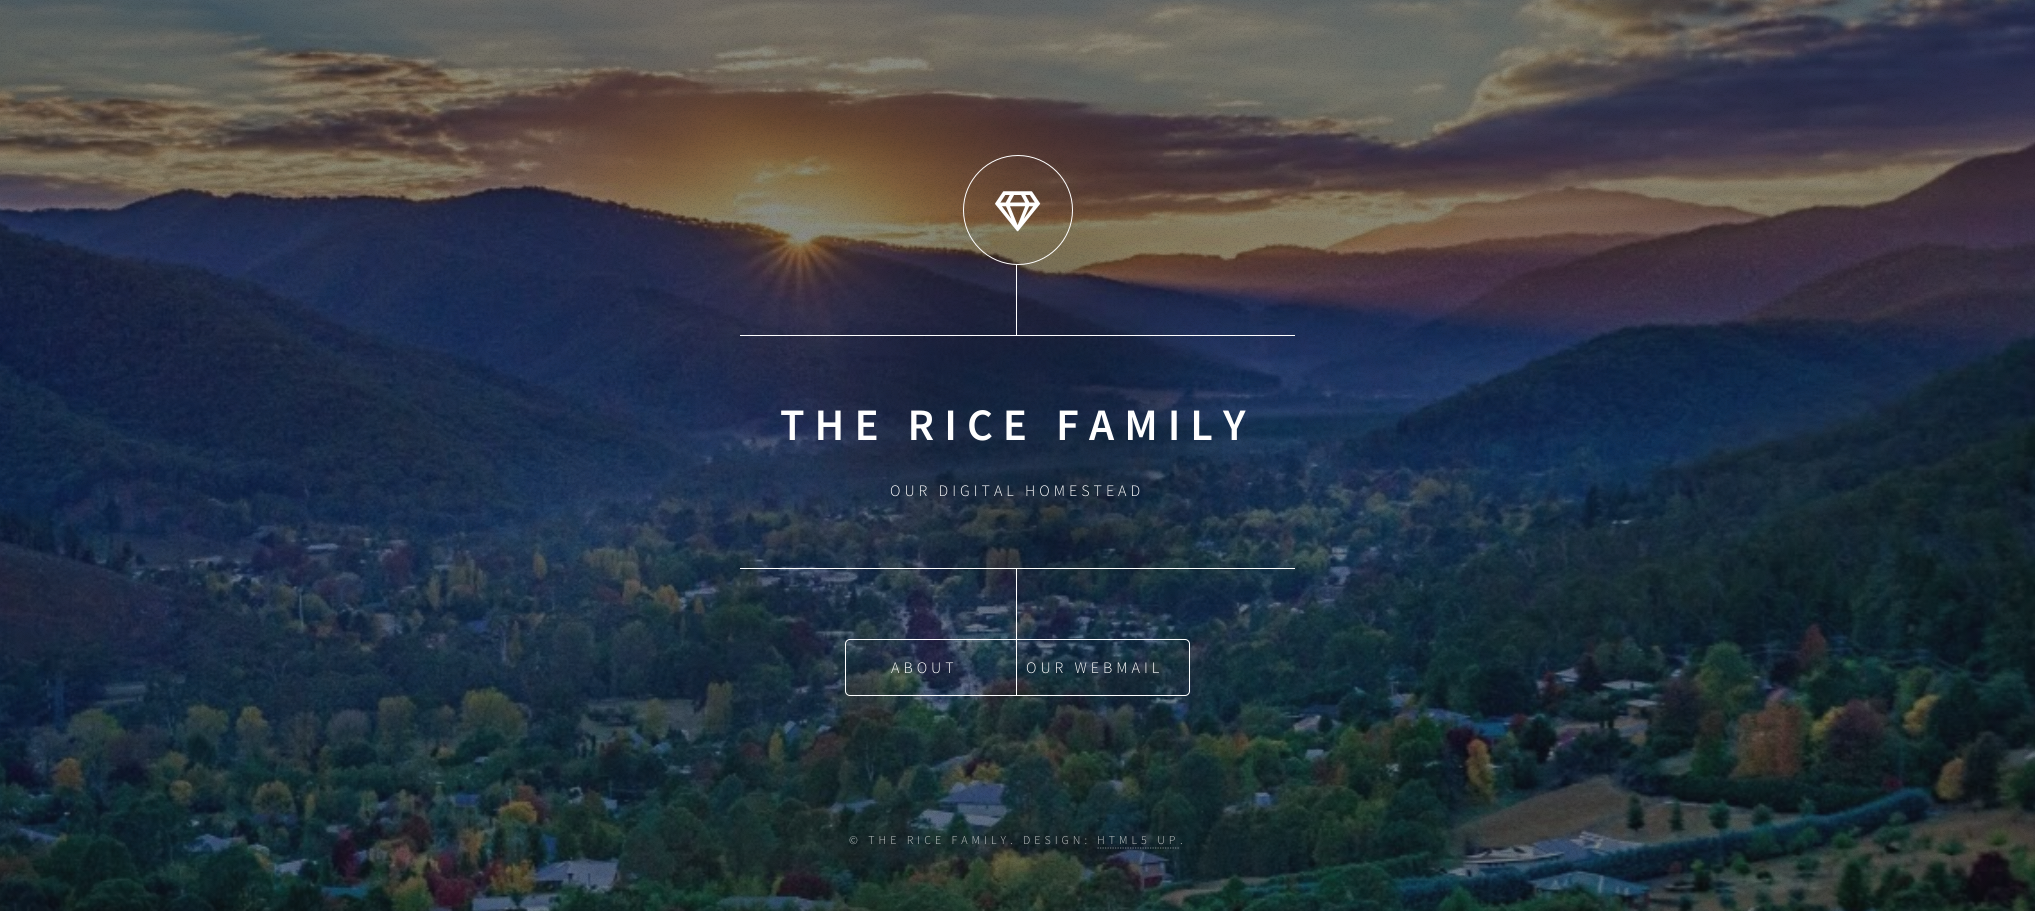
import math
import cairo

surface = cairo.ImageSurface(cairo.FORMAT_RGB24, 2035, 911)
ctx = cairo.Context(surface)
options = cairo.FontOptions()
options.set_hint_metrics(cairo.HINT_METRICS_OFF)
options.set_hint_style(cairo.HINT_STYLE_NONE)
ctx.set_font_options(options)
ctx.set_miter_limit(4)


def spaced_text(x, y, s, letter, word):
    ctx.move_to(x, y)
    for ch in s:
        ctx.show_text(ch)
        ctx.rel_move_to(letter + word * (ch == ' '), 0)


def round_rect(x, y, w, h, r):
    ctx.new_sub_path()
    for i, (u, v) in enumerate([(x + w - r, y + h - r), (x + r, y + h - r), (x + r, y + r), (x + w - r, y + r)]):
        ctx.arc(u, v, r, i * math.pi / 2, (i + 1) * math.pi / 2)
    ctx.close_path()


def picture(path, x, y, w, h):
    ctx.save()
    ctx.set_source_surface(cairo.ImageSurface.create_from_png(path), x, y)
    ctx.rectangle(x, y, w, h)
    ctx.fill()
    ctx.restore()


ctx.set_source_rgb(1, 1, 1)
ctx.paint()
picture("img1.png", 0, 0, 2035, 911)
picture("img2.png", 0, 0, 2035, 911)
gradient = cairo.RadialGradient(0, 0, 0, 0, 0, 1)
gradient.set_matrix(cairo.Matrix(1 / 392, 0, 0, 1 / 383, -1 * 1018 / 392, -1 * 426 / 383))
gradient.add_color_stop_rgba(0.25, 0, 0, 0, 0.25)
gradient.add_color_stop_rgba(0.55, 0, 0, 0, 0)
ctx.set_source(gradient)
ctx.rectangle(814, 225, 408, 400)
ctx.fill()
ctx.arc(1018, 210, 54.5, 0, 2 * math.pi)
ctx.set_source_rgb(1, 1, 1)
ctx.set_line_width(1)
ctx.stroke()
picture("img3.png", 995, 191, 46, 41)
ctx.rectangle(740, 335, 555, 1)
ctx.fill()
ctx.rectangle(740, 568, 555, 1)
ctx.fill()
ctx.rectangle(1016, 265, 1, 71)
ctx.fill()
ctx.select_font_face("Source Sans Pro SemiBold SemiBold")
ctx.set_font_size(45)
spaced_text(780, 440, "THE RICE FAMILY", 10, 0)
ctx.select_font_face("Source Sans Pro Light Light")
ctx.set_font_size(16)
spaced_text(890, 496, "OUR DIGITAL HOMESTEAD", 4, 0)
round_rect(845.5, 639.5, 344, 56, 4.5)
ctx.stroke()
ctx.rectangle(1016, 568, 1, 128)
ctx.fill()
spaced_text(891, 673, "ABOUT", 4, 0)
spaced_text(1026, 673, "OUR WEBMAIL", 4, 0)
ctx.set_font_size(12)
ctx.set_source_rgb(0.776, 0.792, 0.792)
spaced_text(849, 844, "© THE RICE FAMILY. DESIGN:", 4, 0)
spaced_text(1097, 844, "HTML5 UP", 4, 0)
ctx.new_path()
ctx.move_to(1097.5, 848)
ctx.line_to(1180, 848)
ctx.set_source_rgba(1, 1, 1, 0.38)
ctx.set_line_width(1.2)
ctx.set_dash([1.25, 1.25])
ctx.stroke()
ctx.set_source_rgb(0.776, 0.792, 0.792)
spaced_text(1180, 844, ".", 4, 0)
surface.write_to_png("page.png")
